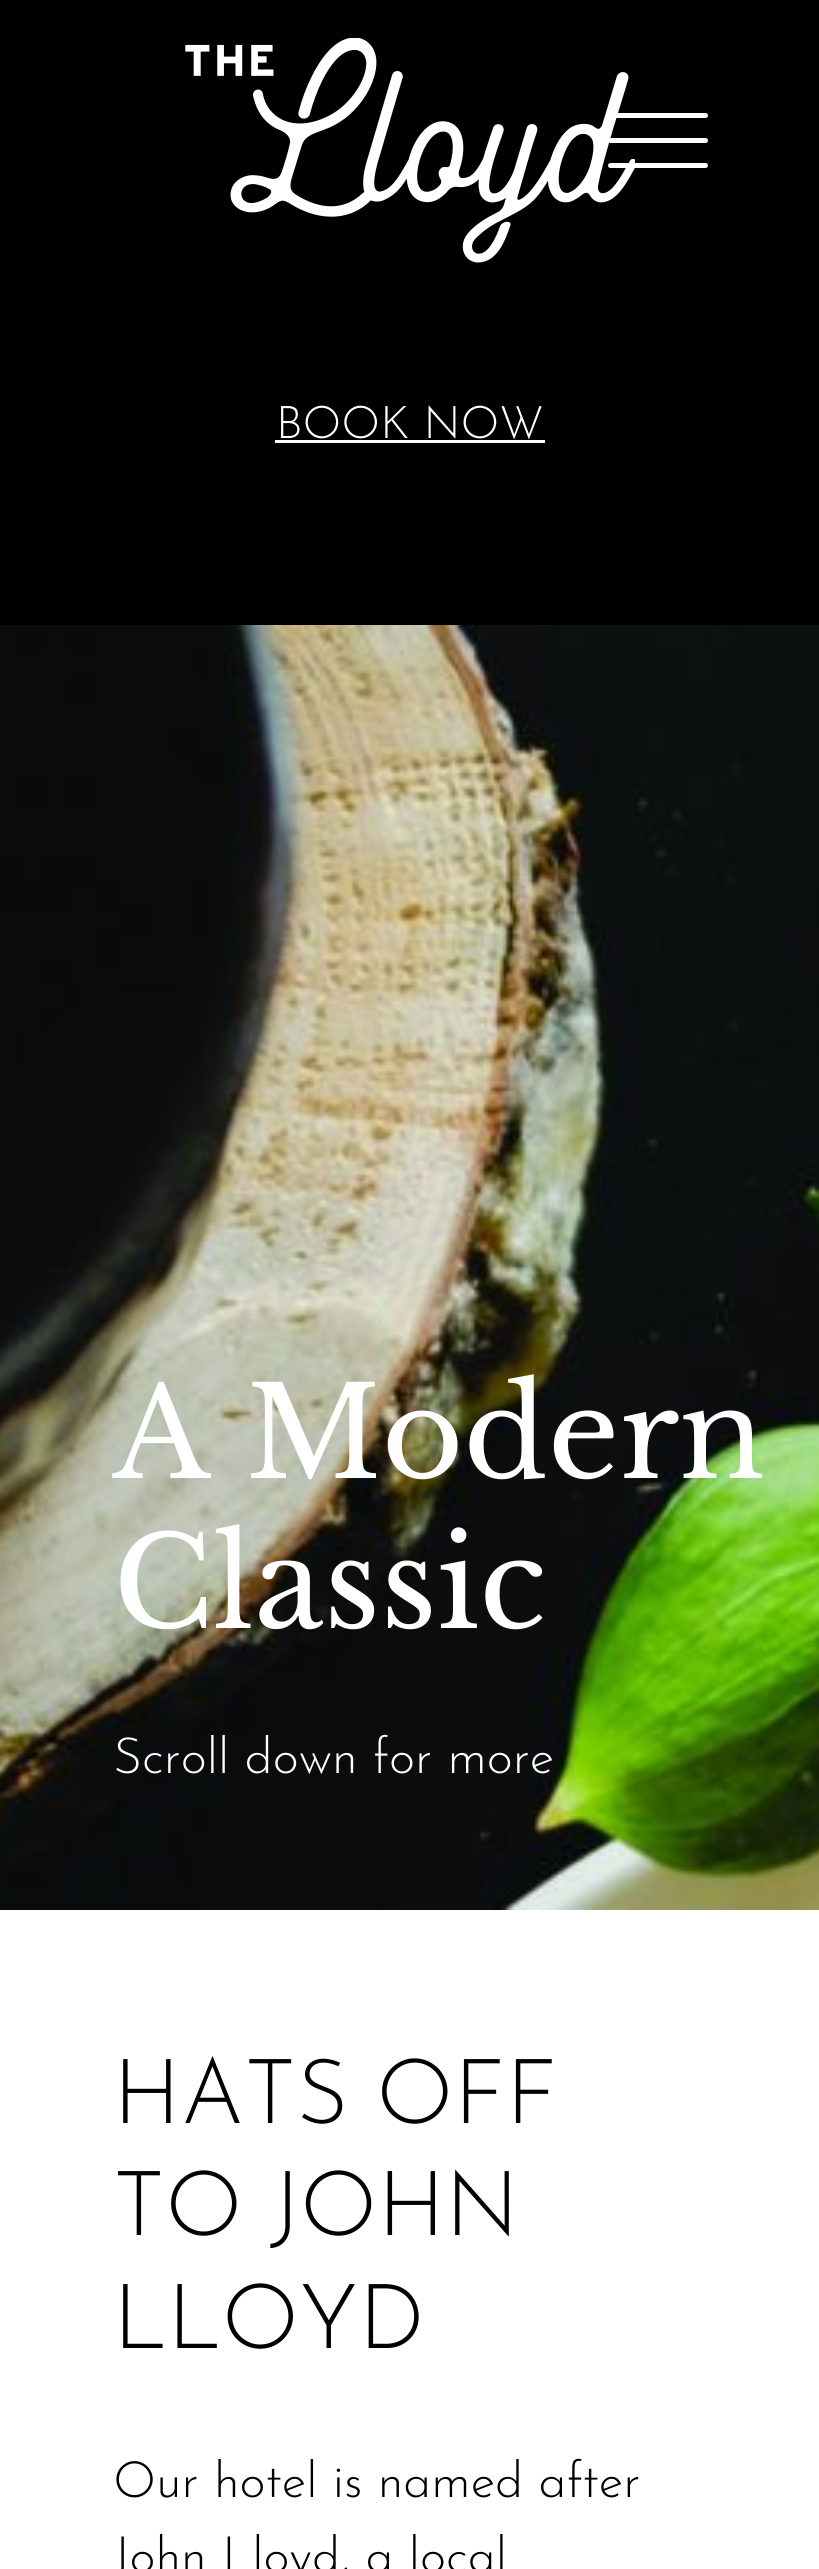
import math
import cairo

surface = cairo.ImageSurface(cairo.FORMAT_RGB24, 819, 2569)
ctx = cairo.Context(surface)
options = cairo.FontOptions()
options.set_hint_metrics(cairo.HINT_METRICS_OFF)
options.set_hint_style(cairo.HINT_STYLE_NONE)
ctx.set_font_options(options)
ctx.set_miter_limit(4)


def round_rect(x, y, w, h, r):
    ctx.new_sub_path()
    for i, (u, v) in enumerate([(x + w - r, y + h - r), (x + r, y + h - r), (x + r, y + r), (x + w - r, y + r)]):
        ctx.arc(u, v, r, i * math.pi / 2, (i + 1) * math.pi / 2)
    ctx.close_path()


def picture(path, x, y, w, h):
    ctx.save()
    ctx.set_source_surface(cairo.ImageSurface.create_from_png(path), x, y)
    ctx.rectangle(x, y, w, h)
    ctx.fill()
    ctx.restore()


ctx.set_source_rgb(1, 1, 1)
ctx.paint()
ctx.set_source_rgb(0, 0, 0)
ctx.rectangle(0, 0, 819, 625)
ctx.fill()
picture("img1.png", 185, 38, 450, 225)
ctx.set_source_rgb(1, 1, 1)
round_rect(608, 138, 100, 5, 2.5)
ctx.fill()
round_rect(608, 113, 100, 5, 2.5)
ctx.fill()
round_rect(608, 163, 100, 5, 2.5)
ctx.fill()
ctx.select_font_face("Josefin Sans Light")
ctx.set_font_size(45)
ctx.move_to(276, 438)
ctx.show_text("BOOK NOW")
ctx.rectangle(275, 440, 270, 3)
ctx.fill()
picture("img2.png", 0, 625, 819, 1285)
ctx.select_font_face("Libre Baskerville")
ctx.set_font_size(125)
ctx.move_to(113, 1478)
ctx.show_text("A Modern")
ctx.move_to(113, 1628)
ctx.show_text("Classic")
ctx.select_font_face("Josefin Sans Light")
ctx.set_font_size(50)
ctx.move_to(113, 1773)
ctx.show_text("Scroll down for more")
ctx.set_font_size(90)
ctx.set_source_rgb(0, 0, 0)
ctx.move_to(113, 2123)
ctx.show_text("HATS OFF")
ctx.move_to(113, 2235)
ctx.show_text("TO JOHN")
ctx.move_to(113, 2348)
ctx.show_text("LLOYD")
ctx.set_font_size(50)
ctx.move_to(113, 2497)
ctx.show_text("Our hotel is named after")
ctx.move_to(113, 2572)
ctx.show_text("John Lloyd, a local")
surface.write_to_png("page.png")
